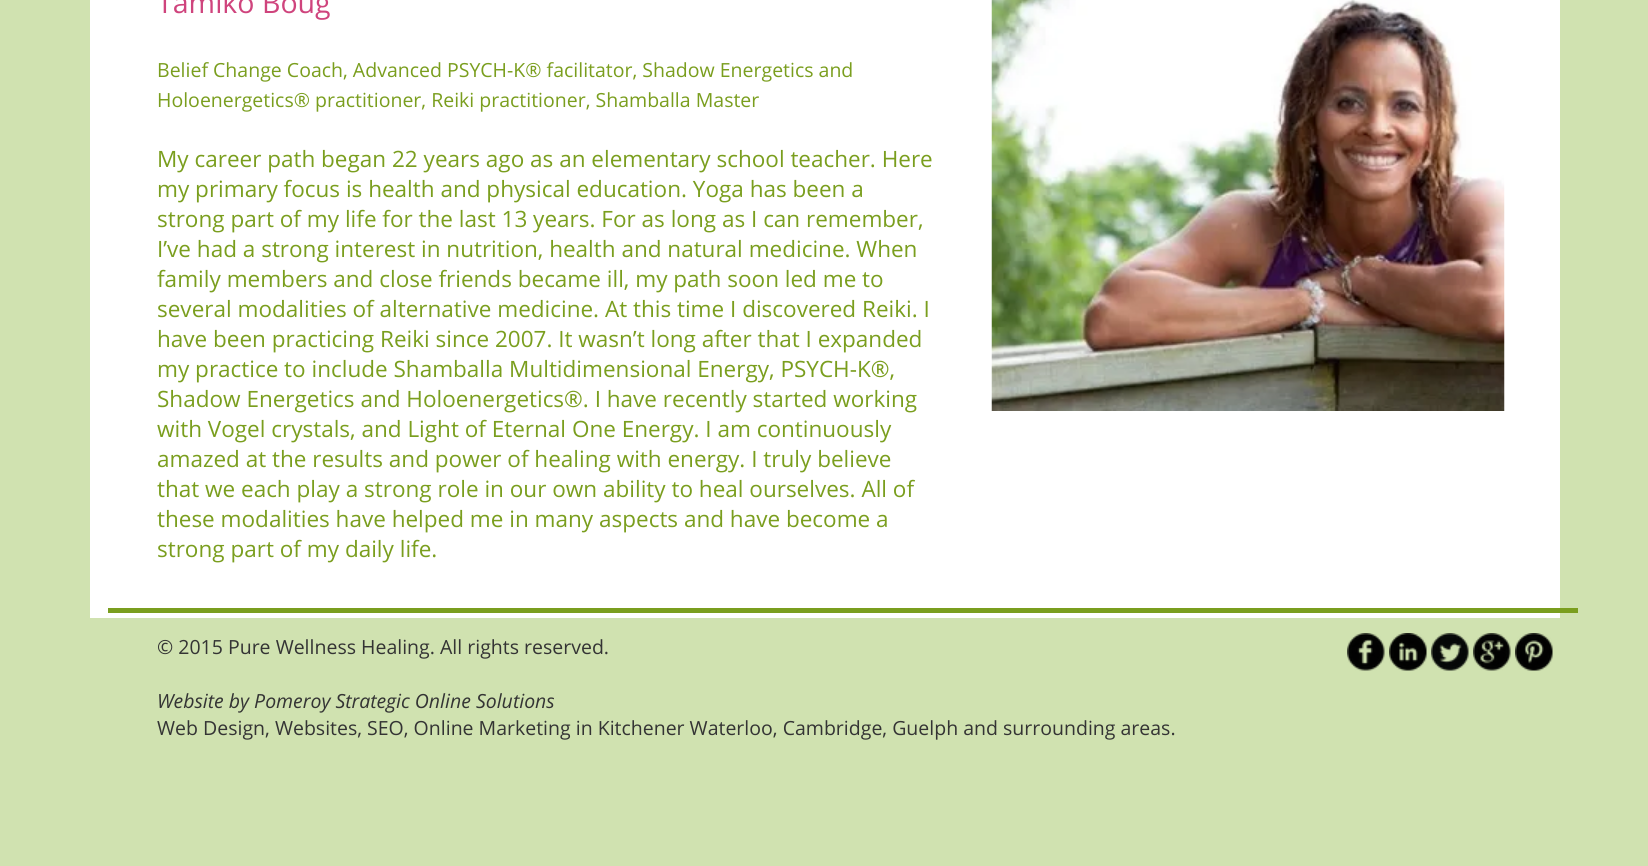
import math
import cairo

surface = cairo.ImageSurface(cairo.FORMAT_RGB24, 1648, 866)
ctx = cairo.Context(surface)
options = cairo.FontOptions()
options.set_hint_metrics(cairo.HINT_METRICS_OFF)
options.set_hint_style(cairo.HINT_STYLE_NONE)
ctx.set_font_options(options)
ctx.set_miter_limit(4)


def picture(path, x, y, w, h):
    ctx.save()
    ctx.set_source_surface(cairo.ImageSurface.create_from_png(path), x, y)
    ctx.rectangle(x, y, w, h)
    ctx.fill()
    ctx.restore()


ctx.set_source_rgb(0.816, 0.886, 0.69)
ctx.paint()
ctx.set_source_rgb(1, 1, 1)
ctx.rectangle(90, 0, 1470, 618)
ctx.fill()
ctx.select_font_face("Open Sans")
ctx.set_font_size(28.5)
ctx.set_source_rgb(0.812, 0.267, 0.49)
ctx.move_to(157, 13)
ctx.show_text("Tamiko Boug")
picture("img1.png", 991, 0, 514, 411)
ctx.set_font_size(19.5)
ctx.set_source_rgb(0.478, 0.62, 0.118)
ctx.move_to(157, 77)
ctx.show_text("Belief Change Coach, Advanced PSYCH-K® facilitator, Shadow Energetics and")
ctx.move_to(157, 107)
ctx.show_text("Holoenergetics® practitioner, Reiki practitioner, Shamballa Master")
ctx.set_font_size(22.5)
ctx.move_to(157, 167)
ctx.show_text("My career path began 22 years ago as an elementary school teacher. Here")
ctx.move_to(157, 197)
ctx.show_text("my primary focus is health and physical education. Yoga has been a")
ctx.move_to(157, 227)
ctx.show_text("strong part of my life for the last 13 years. For as long as I can remember,")
ctx.move_to(157, 257)
ctx.show_text("I’ve had a strong interest in nutrition, health and natural medicine. When")
ctx.move_to(157, 287)
ctx.show_text("family members and close friends became ill, my path soon led me to")
ctx.move_to(157, 317)
ctx.show_text("several modalities of alternative medicine. At this time I discovered Reiki. I")
ctx.move_to(157, 347)
ctx.show_text("have been practicing Reiki since 2007. It wasn’t long after that I expanded")
ctx.move_to(157, 377)
ctx.show_text("my practice to include Shamballa Multidimensional Energy, PSYCH-K®,")
ctx.move_to(157, 407)
ctx.show_text("Shadow Energetics and Holoenergetics®. I have recently started working")
ctx.move_to(157, 437)
ctx.show_text("with Vogel crystals, and Light of Eternal One Energy. I am continuously")
ctx.move_to(157, 467)
ctx.show_text("amazed at the results and power of healing with energy. I truly believe")
ctx.move_to(157, 497)
ctx.show_text("that we each play a strong role in our own ability to heal ourselves. All of")
ctx.move_to(157, 527)
ctx.show_text("these modalities have helped me in many aspects and have become a")
ctx.move_to(157, 557)
ctx.show_text("strong part of my daily life.")
ctx.rectangle(108, 608, 1470, 5)
ctx.fill()
ctx.set_font_size(19.5)
ctx.set_source_rgb(0.204, 0.204, 0.204)
ctx.move_to(157, 654)
ctx.show_text("© 2015 Pure Wellness Healing. All rights reserved.")
ctx.select_font_face("Open Sans", cairo.FONT_SLANT_ITALIC)
ctx.move_to(157, 708)
ctx.show_text("Website by Pomeroy Strategic Online Solutions")
ctx.select_font_face("Open Sans")
ctx.move_to(157, 735)
ctx.show_text("Web Design, Websites, SEO, Online Marketing in Kitchener Waterloo, Cambridge, Guelph and surrounding areas.")
picture("img2.png", 1347, 633, 38, 38)
picture("img3.png", 1389, 633, 38, 38)
picture("img4.png", 1431, 633, 38, 38)
picture("img5.png", 1473, 633, 38, 38)
picture("img6.png", 1515, 633, 38, 38)
surface.write_to_png("page.png")
